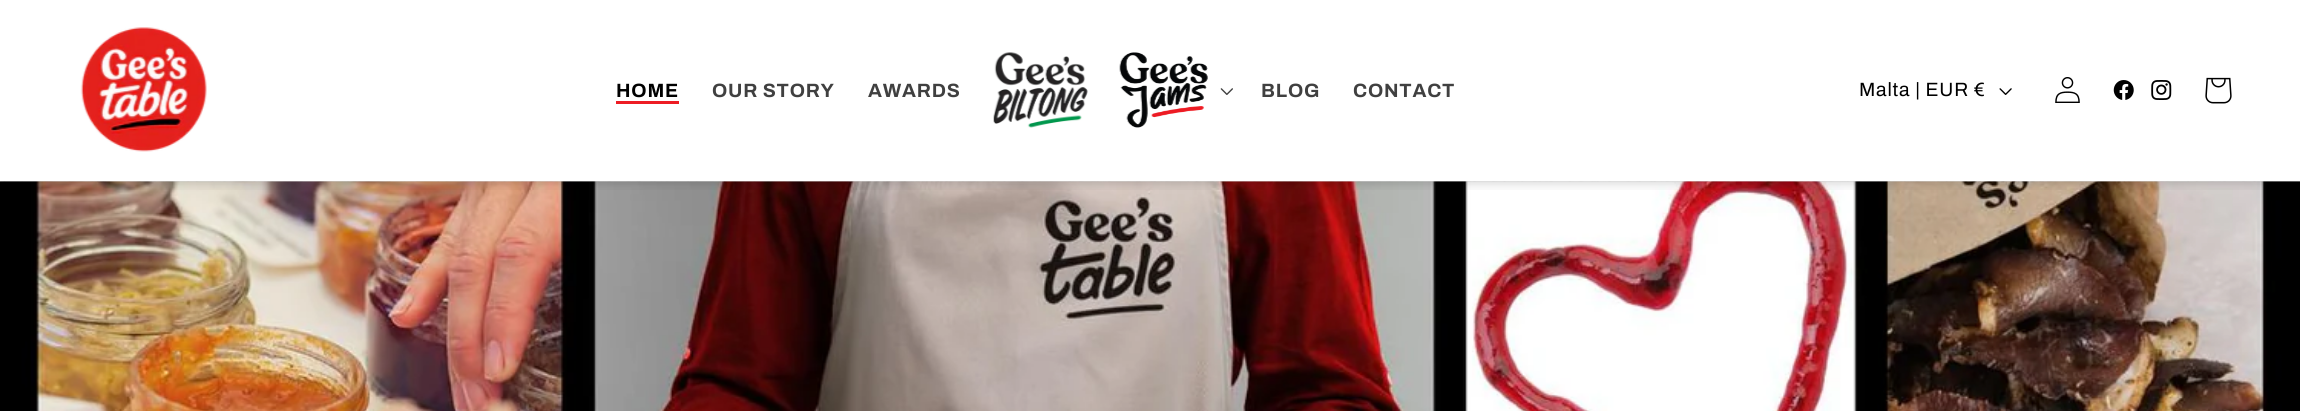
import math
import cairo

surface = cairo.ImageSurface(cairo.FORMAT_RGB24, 2300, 411)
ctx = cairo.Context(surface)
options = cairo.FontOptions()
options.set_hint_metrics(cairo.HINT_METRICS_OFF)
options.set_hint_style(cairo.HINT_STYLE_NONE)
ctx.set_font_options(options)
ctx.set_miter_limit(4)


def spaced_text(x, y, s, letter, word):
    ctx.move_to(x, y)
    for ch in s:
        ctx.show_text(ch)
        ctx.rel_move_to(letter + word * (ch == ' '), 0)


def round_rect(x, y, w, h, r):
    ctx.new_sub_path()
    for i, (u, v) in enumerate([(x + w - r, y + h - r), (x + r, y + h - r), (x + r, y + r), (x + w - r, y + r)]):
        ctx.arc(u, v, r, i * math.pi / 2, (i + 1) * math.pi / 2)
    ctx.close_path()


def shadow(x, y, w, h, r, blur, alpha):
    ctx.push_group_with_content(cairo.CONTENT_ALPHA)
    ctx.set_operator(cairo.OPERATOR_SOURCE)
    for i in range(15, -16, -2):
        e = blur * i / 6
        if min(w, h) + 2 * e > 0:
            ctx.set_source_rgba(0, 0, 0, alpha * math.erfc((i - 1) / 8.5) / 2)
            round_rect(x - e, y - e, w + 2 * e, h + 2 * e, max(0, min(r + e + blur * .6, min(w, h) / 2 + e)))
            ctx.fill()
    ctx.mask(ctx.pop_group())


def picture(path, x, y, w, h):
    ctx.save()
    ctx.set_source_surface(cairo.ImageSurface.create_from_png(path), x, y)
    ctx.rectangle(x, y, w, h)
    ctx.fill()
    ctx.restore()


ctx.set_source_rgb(1, 1, 1)
ctx.paint()
picture("img10.png", 0, 181, 2300, 1)
picture("img11.png", 0, 181, 2300, 230)
ctx.save()
ctx.rectangle(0, 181, 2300, 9)
ctx.clip()
ctx.set_source_rgb(0, 0, 0)
shadow(0, 3, 2300, 181, 0, 5, 0.15)
ctx.restore()
picture("img1.png", 80, 27, 127, 125)
ctx.select_font_face("Archivo", cairo.FONT_SLANT_NORMAL, cairo.FONT_WEIGHT_BOLD)
ctx.set_font_size(19.25)
ctx.set_source_rgb(0, 0, 0)
spaced_text(616, 97, "HOME", 0.8, 0)
ctx.set_source_rgb(0.929, 0.11, 0.141)
ctx.rectangle(616, 101, 63, 3)
ctx.fill()
ctx.set_source_rgb(0.251, 0.251, 0.251)
spaced_text(712, 97, "OUR STORY", 0.8, 0)
spaced_text(868, 97, "AWARDS", 0.8, 0)
picture("img2.png", 993, 52, 95, 76)
picture("img3.png", 1119, 52, 89, 76)
picture("img4.png", 1220, 88, 13, 7)
spaced_text(1261, 97, "BLOG", 0.8, 0)
spaced_text(1353, 97, "CONTACT", 0.8, 0)
ctx.select_font_face("Archivo")
ctx.set_source_rgb(0, 0, 0)
spaced_text(1859, 96, "Malta | EUR €", 0.8, 0)
picture("img5.png", 1999, 88, 13, 7)
picture("img6.png", 2055, 77, 25, 26)
picture("img7.png", 2113, 80, 21, 20)
picture("img8.png", 2151, 80, 21, 20)
picture("img9.png", 2205, 77, 27, 27)
surface.write_to_png("page.png")
